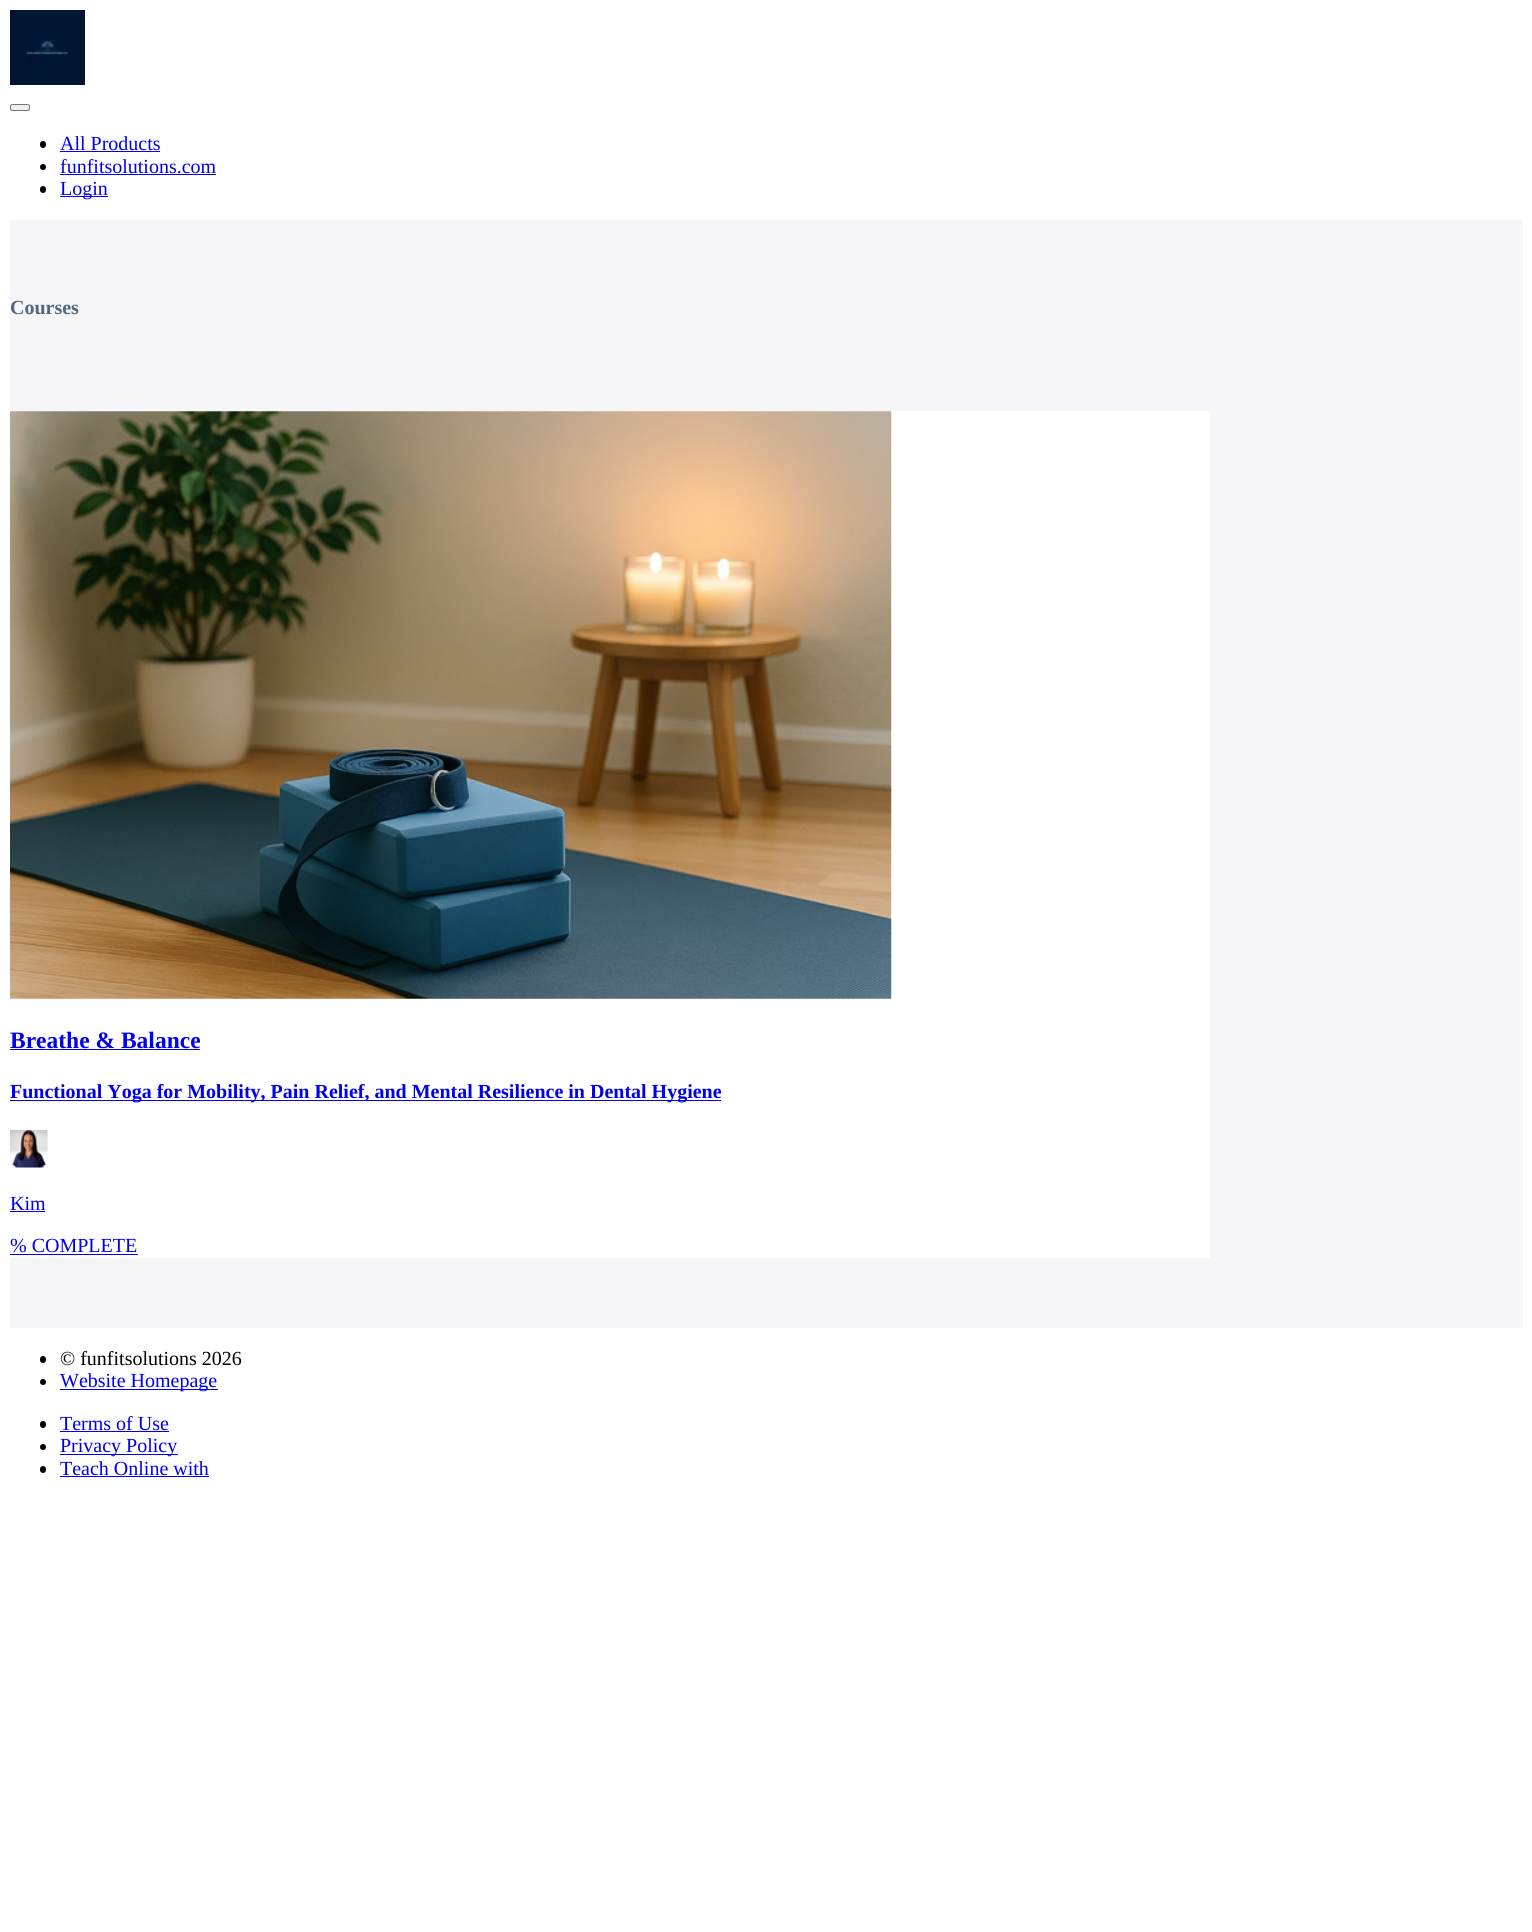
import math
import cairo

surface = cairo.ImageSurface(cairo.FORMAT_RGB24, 1532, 1932)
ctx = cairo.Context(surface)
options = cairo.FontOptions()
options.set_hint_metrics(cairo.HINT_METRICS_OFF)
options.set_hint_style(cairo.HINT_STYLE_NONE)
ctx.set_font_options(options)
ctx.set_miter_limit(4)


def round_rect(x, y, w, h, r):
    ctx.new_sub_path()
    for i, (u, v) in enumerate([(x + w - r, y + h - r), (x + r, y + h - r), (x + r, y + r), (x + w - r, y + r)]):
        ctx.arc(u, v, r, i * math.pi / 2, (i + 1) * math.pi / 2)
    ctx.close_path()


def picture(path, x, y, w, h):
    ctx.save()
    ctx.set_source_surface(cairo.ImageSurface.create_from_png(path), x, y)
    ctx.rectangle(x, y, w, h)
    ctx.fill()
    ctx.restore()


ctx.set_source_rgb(1, 1, 1)
ctx.paint()
picture("img1.png", 10, 10, 75, 75)
ctx.set_source_rgb(0.937, 0.937, 0.937)
round_rect(10.5, 104.5, 19, 6, 2)
ctx.fill_preserve()
ctx.set_source_rgb(0.463, 0.463, 0.463)
ctx.set_line_width(1)
ctx.stroke()
ctx.set_source_rgb(0, 0, 0)
round_rect(40, 141, 6, 7, 3)
ctx.fill()
ctx.select_font_face("Liberation Serif")
ctx.set_font_size(20)
ctx.set_source_rgb(0, 0, 0.933)
ctx.move_to(60, 150)
ctx.show_text("All Products")
ctx.rectangle(60, 151, 100, 1)
ctx.fill()
ctx.set_source_rgb(0, 0, 0)
ctx.arc(43, 167, 3, 0, 2 * math.pi)
ctx.fill()
ctx.set_source_rgb(0, 0, 0.933)
ctx.move_to(60, 173)
ctx.show_text("funfitsolutions.com")
ctx.rectangle(60, 174, 156, 1)
ctx.fill()
ctx.set_source_rgb(0, 0, 0)
round_rect(40, 186, 6, 7, 3)
ctx.fill()
ctx.set_source_rgb(0, 0, 0.933)
ctx.rectangle(60, 196, 48, 1)
ctx.fill()
ctx.move_to(60, 195)
ctx.show_text("Login")
ctx.set_source_rgb(0.961, 0.961, 0.973)
ctx.rectangle(10, 220, 1513, 1108)
ctx.fill()
ctx.select_font_face("Liberation Serif", cairo.FONT_SLANT_NORMAL, cairo.FONT_WEIGHT_BOLD)
ctx.set_source_rgb(0.314, 0.404, 0.494)
ctx.move_to(10, 314)
ctx.show_text("Courses")
ctx.set_source_rgb(1, 1, 1)
ctx.rectangle(10, 411, 1200, 847)
ctx.fill()
picture("img2.png", 10, 411, 882, 588)
ctx.set_font_size(23.5)
ctx.set_source_rgb(0, 0, 0.933)
ctx.move_to(10, 1048)
ctx.show_text("Breathe & Balance")
ctx.rectangle(10, 1049, 190, 1)
ctx.fill()
ctx.rectangle(10, 1100, 711, 1)
ctx.fill()
ctx.set_font_size(20)
ctx.move_to(10, 1098)
ctx.show_text("Functional Yoga for Mobility, Pain Relief, and Mental Resilience in Dental Hygiene")
picture("img3.png", 10, 1130, 38, 38)
ctx.select_font_face("Liberation Serif")
ctx.move_to(10, 1210)
ctx.show_text("Kim")
ctx.rectangle(10, 1211, 35, 1)
ctx.fill()
ctx.move_to(10, 1252)
ctx.show_text("% COMPLETE")
ctx.rectangle(10, 1254, 128, 1)
ctx.fill()
ctx.set_source_rgb(0, 0, 0)
round_rect(40, 1356, 6, 7, 3)
ctx.fill()
ctx.move_to(60, 1365)
ctx.show_text("© funfitsolutions 2026")
ctx.new_path()
ctx.arc(43, 1382, 3, 0, 2 * math.pi)
ctx.fill()
ctx.set_source_rgb(0, 0, 0.933)
ctx.rectangle(60, 1389, 158, 1)
ctx.fill()
ctx.move_to(60, 1387)
ctx.show_text("Website Homepage")
ctx.set_source_rgb(0, 0, 0)
round_rect(40, 1421, 6, 7, 3)
ctx.fill()
ctx.set_source_rgb(0, 0, 0.933)
ctx.move_to(60, 1430)
ctx.show_text("Terms of Use")
ctx.rectangle(60, 1431, 109, 1)
ctx.fill()
ctx.set_source_rgb(0, 0, 0)
ctx.arc(43, 1447, 3, 0, 2 * math.pi)
ctx.fill()
ctx.set_source_rgb(0, 0, 0.933)
ctx.rectangle(60, 1454, 118, 1)
ctx.fill()
ctx.move_to(60, 1452)
ctx.show_text("Privacy Policy")
ctx.set_source_rgb(0, 0, 0)
round_rect(40, 1466, 6, 7, 3)
ctx.fill()
ctx.set_source_rgb(0, 0, 0.933)
ctx.move_to(60, 1475)
ctx.show_text("Teach Online with")
ctx.rectangle(60, 1476, 149, 1)
ctx.fill()
surface.write_to_png("page.png")
